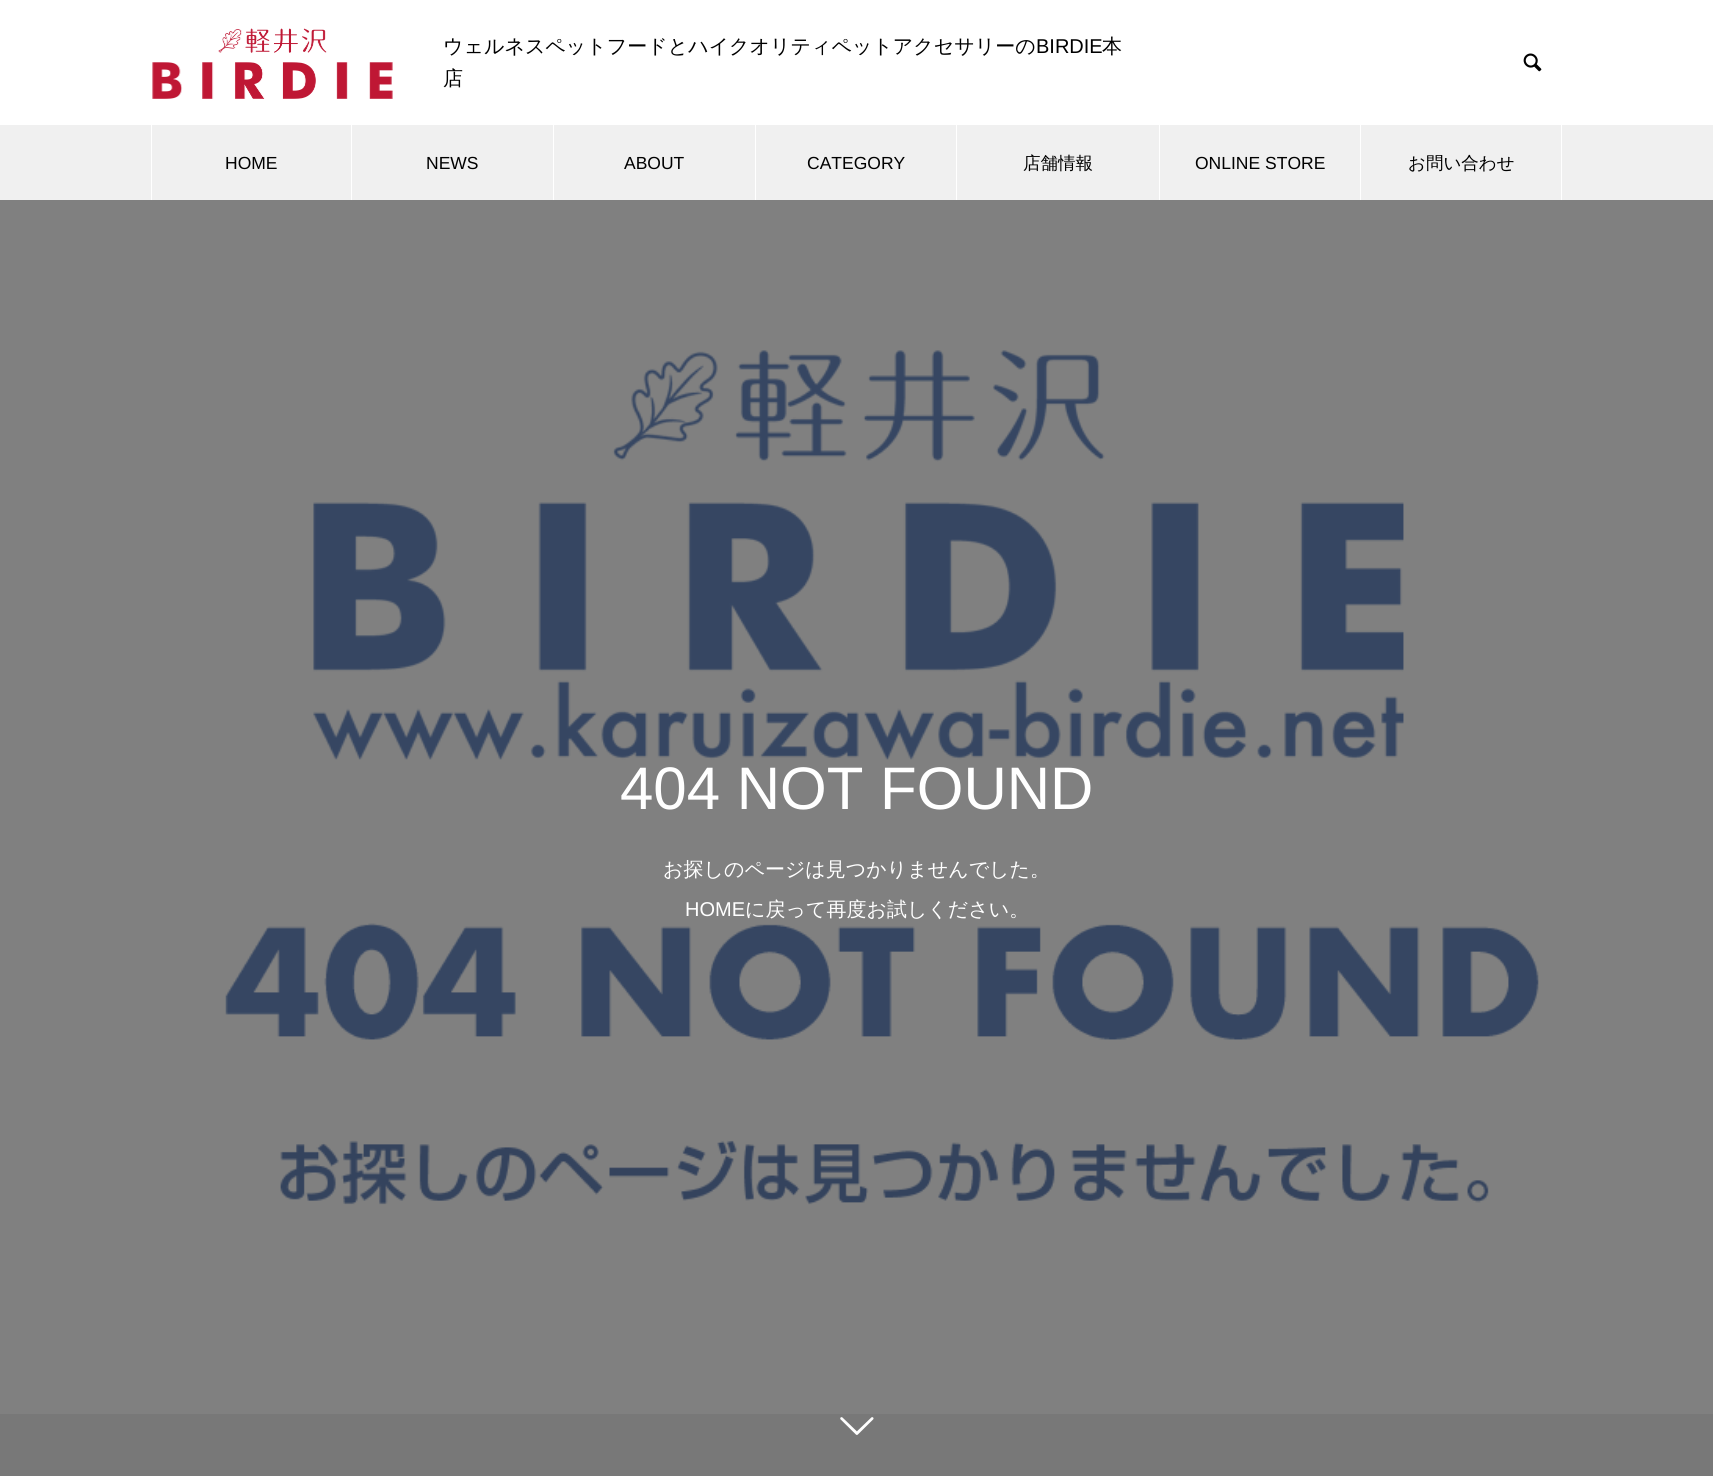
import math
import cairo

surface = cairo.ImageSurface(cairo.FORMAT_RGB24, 1713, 1476)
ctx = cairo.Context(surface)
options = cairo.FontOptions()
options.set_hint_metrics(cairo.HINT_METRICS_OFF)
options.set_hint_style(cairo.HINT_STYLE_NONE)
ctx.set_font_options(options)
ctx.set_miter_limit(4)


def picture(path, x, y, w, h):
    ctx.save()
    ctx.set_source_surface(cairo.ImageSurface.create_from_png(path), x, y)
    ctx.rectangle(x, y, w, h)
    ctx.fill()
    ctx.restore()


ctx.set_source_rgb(1, 1, 1)
ctx.paint()
ctx.set_source_rgb(0.502, 0.502, 0.502)
ctx.rectangle(0, 200, 1713, 1214)
ctx.fill()
picture("img1.png", 152, 28, 241, 71)
ctx.select_font_face("WenQuanYi Zen Hei Medium")
ctx.set_font_size(20)
ctx.set_source_rgb(0, 0, 0)
ctx.move_to(443, 53)
ctx.show_text("ウェルネスペットフードとハイクオリティペットアクセサリーの")
ctx.select_font_face("Liberation Sans")
ctx.move_to(1036, 53)
ctx.show_text("BIRDIE")
ctx.select_font_face("WenQuanYi Zen Hei Medium")
ctx.move_to(1102, 53)
ctx.show_text("本")
ctx.move_to(443, 85)
ctx.show_text("店")
picture("img2.png", 1523, 53, 19, 19)
ctx.set_source_rgb(0.941, 0.941, 0.941)
ctx.rectangle(0, 125, 1713, 75)
ctx.fill()
ctx.set_source_rgb(1, 1, 1)
ctx.rectangle(351, 125, 1, 75)
ctx.fill()
ctx.rectangle(151, 125, 1, 75)
ctx.fill()
ctx.select_font_face("Liberation Sans")
ctx.set_font_size(17.5)
ctx.set_source_rgb(0, 0, 0)
ctx.move_to(225, 169)
ctx.show_text("HOME")
ctx.set_source_rgb(1, 1, 1)
ctx.rectangle(553, 125, 1, 75)
ctx.fill()
ctx.set_source_rgb(0, 0, 0)
ctx.move_to(426, 169)
ctx.show_text("NEWS")
ctx.set_source_rgb(1, 1, 1)
ctx.rectangle(755, 125, 1, 75)
ctx.fill()
ctx.set_source_rgb(0, 0, 0)
ctx.move_to(624, 169)
ctx.show_text("ABOUT")
ctx.set_source_rgb(1, 1, 1)
ctx.rectangle(956, 125, 1, 75)
ctx.fill()
ctx.set_source_rgb(0, 0, 0)
ctx.move_to(807, 169)
ctx.show_text("CATEGORY")
ctx.set_source_rgb(1, 1, 1)
ctx.rectangle(1159, 125, 1, 75)
ctx.fill()
ctx.select_font_face("WenQuanYi Zen Hei Medium")
ctx.set_source_rgb(0, 0, 0)
ctx.move_to(1023, 169)
ctx.show_text("店舗情報")
ctx.set_source_rgb(1, 1, 1)
ctx.rectangle(1360, 125, 1, 75)
ctx.fill()
ctx.select_font_face("Liberation Sans")
ctx.set_source_rgb(0, 0, 0)
ctx.move_to(1195, 169)
ctx.show_text("ONLINE STORE")
ctx.set_source_rgb(1, 1, 1)
ctx.rectangle(1561, 125, 1, 75)
ctx.fill()
ctx.select_font_face("WenQuanYi Zen Hei Medium")
ctx.set_source_rgb(0, 0, 0)
ctx.move_to(1408, 169)
ctx.show_text("お問い合わせ")
picture("img3.png", 225, 350, 1314, 855)
ctx.select_font_face("Liberation Sans")
ctx.set_font_size(60)
ctx.set_source_rgb(1, 1, 1)
ctx.move_to(620, 809)
ctx.show_text("404 NOT FOUND")
ctx.select_font_face("WenQuanYi Zen Hei Medium")
ctx.set_font_size(20)
ctx.move_to(663, 876)
ctx.show_text("お探しのページは見つかりませんでした。")
ctx.select_font_face("Liberation Sans")
ctx.move_to(685, 916)
ctx.show_text("HOME")
ctx.select_font_face("WenQuanYi Zen Hei Medium")
ctx.move_to(745, 916)
ctx.show_text("に戻って再度お試しください。")
ctx.set_source_rgb(0.471, 0.471, 0.471)
ctx.rectangle(0, 1414, 1713, 62)
ctx.fill()
picture("img4.png", 840, 1417, 34, 18)
surface.write_to_png("page.png")
